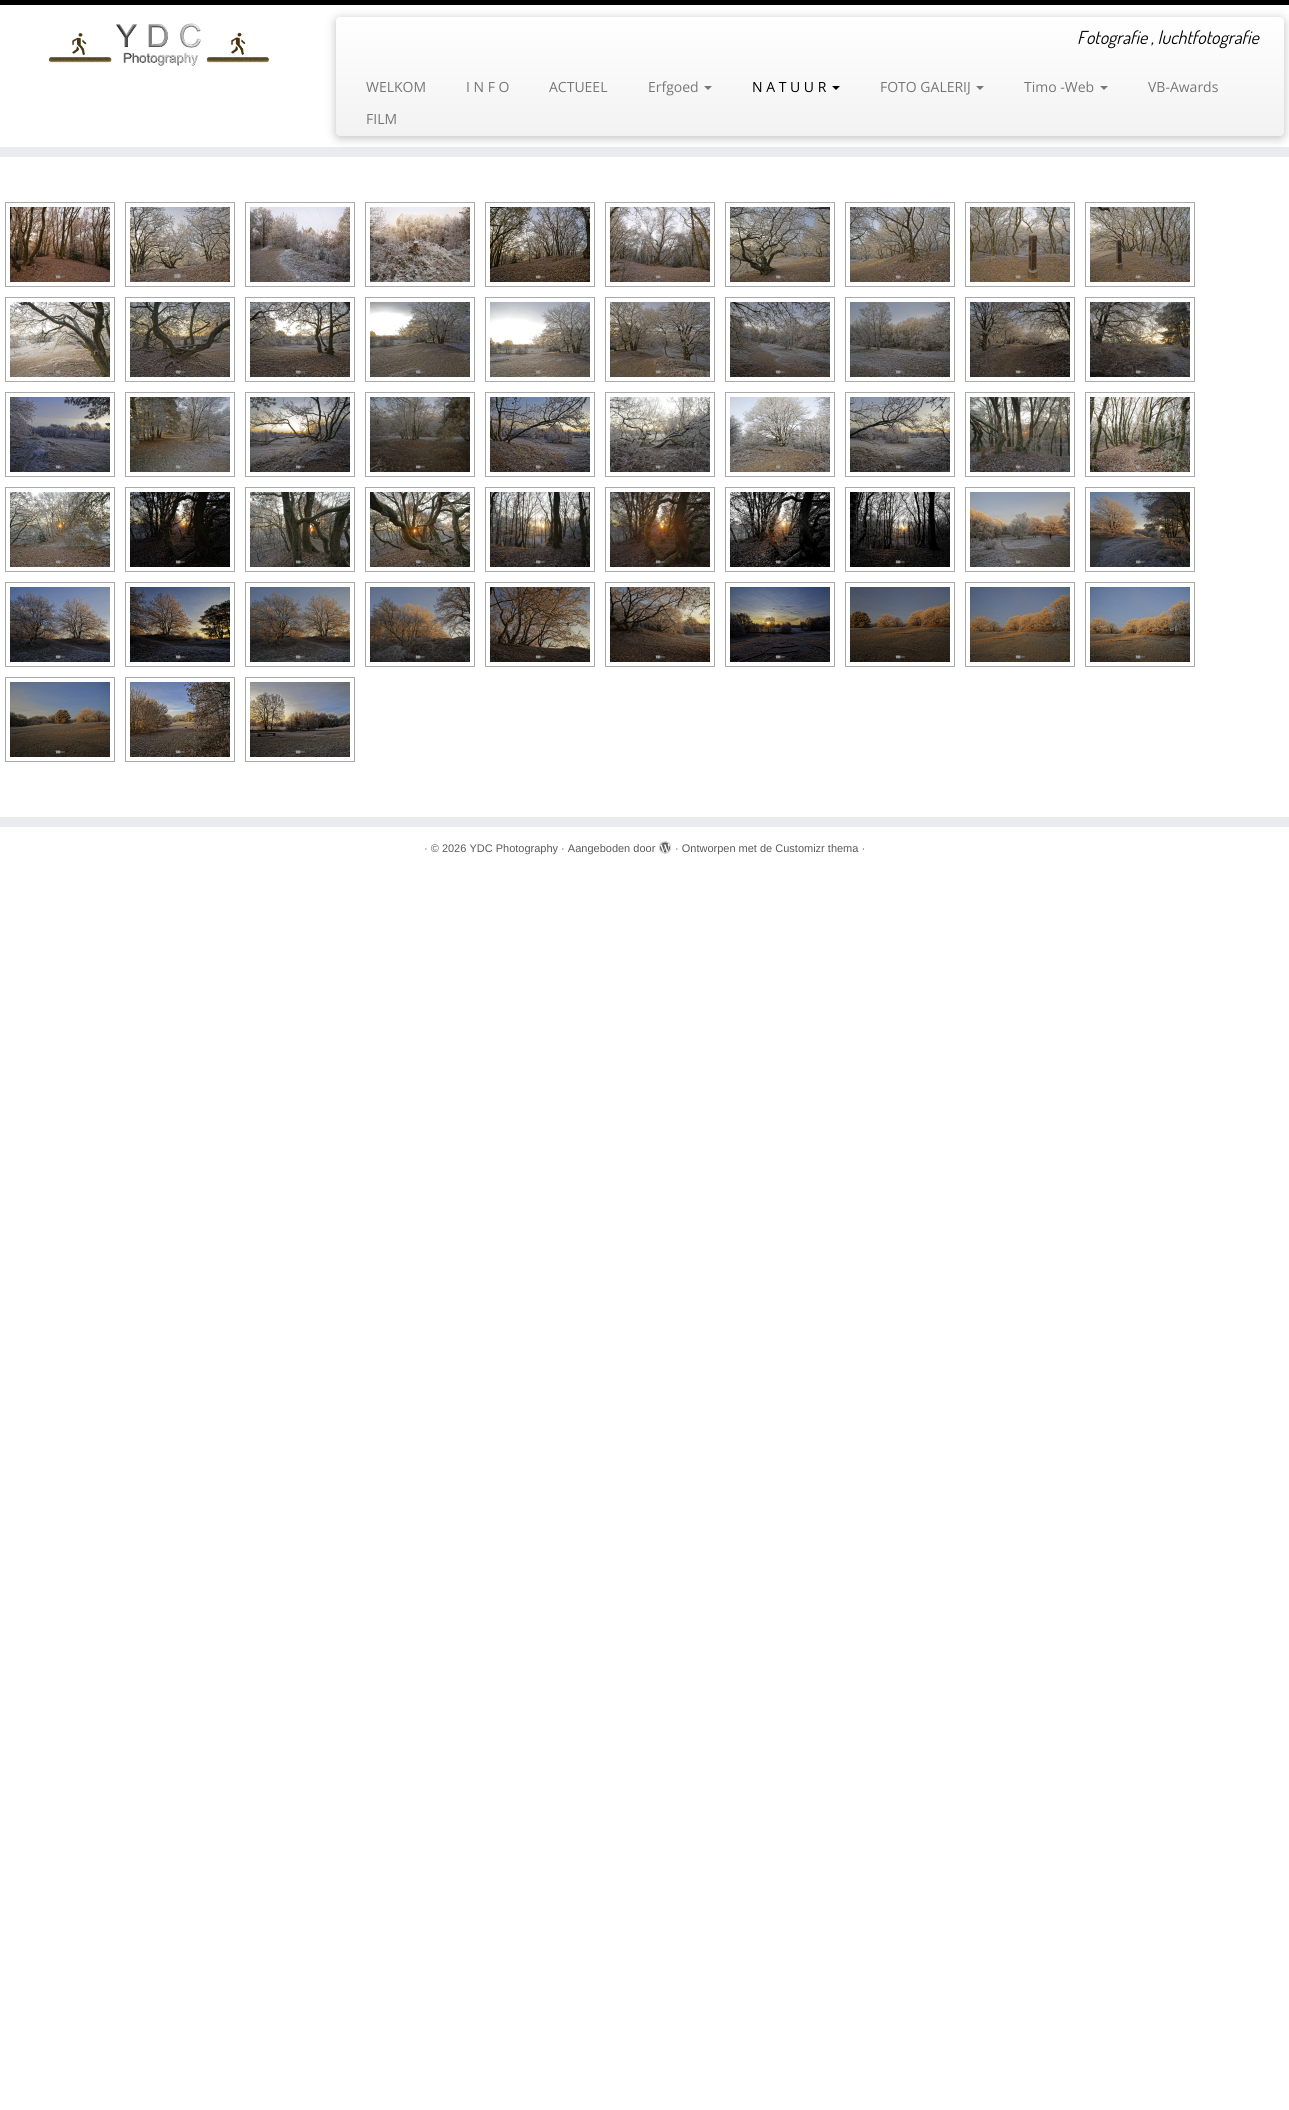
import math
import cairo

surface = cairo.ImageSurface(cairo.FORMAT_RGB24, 1289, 2110)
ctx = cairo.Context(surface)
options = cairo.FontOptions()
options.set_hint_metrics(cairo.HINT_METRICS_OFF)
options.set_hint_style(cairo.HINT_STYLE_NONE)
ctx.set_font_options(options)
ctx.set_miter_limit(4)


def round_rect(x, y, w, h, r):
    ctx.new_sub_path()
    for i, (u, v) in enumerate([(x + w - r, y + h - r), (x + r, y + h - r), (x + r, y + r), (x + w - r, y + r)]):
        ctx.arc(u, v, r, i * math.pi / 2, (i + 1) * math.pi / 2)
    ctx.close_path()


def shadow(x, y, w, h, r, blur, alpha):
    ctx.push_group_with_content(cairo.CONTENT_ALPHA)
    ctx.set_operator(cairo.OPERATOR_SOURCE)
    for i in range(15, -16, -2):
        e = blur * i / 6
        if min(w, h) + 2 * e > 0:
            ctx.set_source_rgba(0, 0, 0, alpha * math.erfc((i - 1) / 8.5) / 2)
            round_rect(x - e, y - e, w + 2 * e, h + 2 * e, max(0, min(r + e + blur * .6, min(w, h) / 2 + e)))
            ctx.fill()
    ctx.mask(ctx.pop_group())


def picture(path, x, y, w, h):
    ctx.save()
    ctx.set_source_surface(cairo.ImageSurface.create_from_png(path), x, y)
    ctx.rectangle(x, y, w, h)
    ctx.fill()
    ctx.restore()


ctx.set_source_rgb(1, 1, 1)
ctx.paint()
ctx.set_source_rgb(0, 0, 0)
ctx.rectangle(0, 0, 1289, 5)
ctx.fill()
ctx.set_source_rgb(0.914, 0.918, 0.933)
ctx.rectangle(0, 147, 1289, 10)
ctx.fill()
picture("img1.png", 48, 23, 222, 43)
ctx.set_source_rgb(0, 0, 0)
shadow(336, 19, 948, 119, 4, 5, 0.25)
gradient = cairo.LinearGradient(810, 17, 810, 136)
gradient.add_color_stop_rgba(0, 1, 1, 1, 1)
gradient.add_color_stop_rgba(1, 0.949, 0.949, 0.949, 1)
ctx.set_source(gradient)
round_rect(336, 17, 948, 119, 4)
ctx.fill()
ctx.select_font_face("Dosis", cairo.FONT_SLANT_ITALIC)
ctx.set_font_size(18)
ctx.set_source_rgb(0, 0, 0)
ctx.move_to(1077, 44)
ctx.show_text("Fotografie , luchtfotografie")
ctx.select_font_face("Open Sans")
ctx.set_font_size(14)
ctx.set_source_rgb(0.467, 0.467, 0.467)
ctx.move_to(366, 92)
ctx.show_text("WELKOM")
ctx.move_to(466, 92)
ctx.show_text("I N F O")
ctx.move_to(549, 92)
ctx.show_text("ACTUEEL")
ctx.move_to(648, 92)
ctx.show_text("Erfgoed")
ctx.new_path()
ctx.move_to(704, 86)
ctx.line_to(712, 86)
ctx.line_to(708, 90)
ctx.close_path()
ctx.fill()
ctx.set_source_rgb(0, 0, 0)
ctx.move_to(752, 92)
ctx.show_text("N A T U U R")
ctx.new_path()
ctx.move_to(832, 86)
ctx.line_to(840, 86)
ctx.line_to(836, 90)
ctx.close_path()
ctx.fill()
ctx.set_source_rgb(0.467, 0.467, 0.467)
ctx.move_to(880, 92)
ctx.show_text("FOTO GALERIJ")
ctx.new_path()
ctx.move_to(976, 86)
ctx.line_to(984, 86)
ctx.line_to(980, 90)
ctx.close_path()
ctx.fill()
ctx.move_to(1024, 92)
ctx.show_text("Timo -Web")
ctx.new_path()
ctx.move_to(1100, 86)
ctx.line_to(1108, 86)
ctx.line_to(1104, 90)
ctx.close_path()
ctx.fill()
ctx.move_to(1148, 92)
ctx.show_text("VB-Awards")
ctx.move_to(366, 124)
ctx.show_text("FILM")
ctx.rectangle(5.5, 202.5, 109, 84)
ctx.set_source_rgb(0.663, 0.663, 0.663)
ctx.set_line_width(1)
ctx.stroke()
picture("img2.png", 10, 207, 100, 75)
ctx.rectangle(125.5, 202.5, 109, 84)
ctx.stroke()
picture("img3.png", 130, 207, 100, 75)
ctx.rectangle(245.5, 202.5, 109, 84)
ctx.stroke()
picture("img4.png", 250, 207, 100, 75)
ctx.rectangle(365.5, 202.5, 109, 84)
ctx.stroke()
picture("img5.png", 370, 207, 100, 75)
ctx.rectangle(485.5, 202.5, 109, 84)
ctx.stroke()
picture("img6.png", 490, 207, 100, 75)
ctx.rectangle(605.5, 202.5, 109, 84)
ctx.stroke()
picture("img7.png", 610, 207, 100, 75)
ctx.rectangle(725.5, 202.5, 109, 84)
ctx.stroke()
picture("img8.png", 730, 207, 100, 75)
ctx.rectangle(845.5, 202.5, 109, 84)
ctx.stroke()
picture("img9.png", 850, 207, 100, 75)
ctx.rectangle(965.5, 202.5, 109, 84)
ctx.stroke()
picture("img10.png", 970, 207, 100, 75)
ctx.rectangle(1085.5, 202.5, 109, 84)
ctx.stroke()
picture("img11.png", 1090, 207, 100, 75)
ctx.rectangle(5.5, 297.5, 109, 84)
ctx.stroke()
picture("img12.png", 10, 302, 100, 75)
ctx.rectangle(125.5, 297.5, 109, 84)
ctx.stroke()
picture("img13.png", 130, 302, 100, 75)
ctx.rectangle(245.5, 297.5, 109, 84)
ctx.stroke()
picture("img14.png", 250, 302, 100, 75)
ctx.rectangle(365.5, 297.5, 109, 84)
ctx.stroke()
picture("img15.png", 370, 302, 100, 75)
ctx.rectangle(485.5, 297.5, 109, 84)
ctx.stroke()
picture("img16.png", 490, 302, 100, 75)
ctx.rectangle(605.5, 297.5, 109, 84)
ctx.stroke()
picture("img17.png", 610, 302, 100, 75)
ctx.rectangle(725.5, 297.5, 109, 84)
ctx.stroke()
picture("img18.png", 730, 302, 100, 75)
ctx.rectangle(845.5, 297.5, 109, 84)
ctx.stroke()
picture("img19.png", 850, 302, 100, 75)
ctx.rectangle(965.5, 297.5, 109, 84)
ctx.stroke()
picture("img20.png", 970, 302, 100, 75)
ctx.rectangle(1085.5, 297.5, 109, 84)
ctx.stroke()
picture("img21.png", 1090, 302, 100, 75)
ctx.rectangle(5.5, 392.5, 109, 84)
ctx.stroke()
picture("img22.png", 10, 397, 100, 75)
ctx.rectangle(125.5, 392.5, 109, 84)
ctx.stroke()
picture("img23.png", 130, 397, 100, 75)
ctx.rectangle(245.5, 392.5, 109, 84)
ctx.stroke()
picture("img24.png", 250, 397, 100, 75)
ctx.rectangle(365.5, 392.5, 109, 84)
ctx.stroke()
picture("img25.png", 370, 397, 100, 75)
ctx.rectangle(485.5, 392.5, 109, 84)
ctx.stroke()
picture("img26.png", 490, 397, 100, 75)
ctx.rectangle(605.5, 392.5, 109, 84)
ctx.stroke()
picture("img27.png", 610, 397, 100, 75)
ctx.rectangle(725.5, 392.5, 109, 84)
ctx.stroke()
picture("img28.png", 730, 397, 100, 75)
ctx.rectangle(845.5, 392.5, 109, 84)
ctx.stroke()
picture("img29.png", 850, 397, 100, 75)
ctx.rectangle(965.5, 392.5, 109, 84)
ctx.stroke()
picture("img30.png", 970, 397, 100, 75)
ctx.rectangle(1085.5, 392.5, 109, 84)
ctx.stroke()
picture("img31.png", 1090, 397, 100, 75)
ctx.rectangle(5.5, 487.5, 109, 84)
ctx.stroke()
picture("img32.png", 10, 492, 100, 75)
ctx.rectangle(125.5, 487.5, 109, 84)
ctx.stroke()
picture("img33.png", 130, 492, 100, 75)
ctx.rectangle(245.5, 487.5, 109, 84)
ctx.stroke()
picture("img34.png", 250, 492, 100, 75)
ctx.rectangle(365.5, 487.5, 109, 84)
ctx.stroke()
picture("img35.png", 370, 492, 100, 75)
ctx.rectangle(485.5, 487.5, 109, 84)
ctx.stroke()
picture("img36.png", 490, 492, 100, 75)
ctx.rectangle(605.5, 487.5, 109, 84)
ctx.stroke()
picture("img37.png", 610, 492, 100, 75)
ctx.rectangle(725.5, 487.5, 109, 84)
ctx.stroke()
picture("img38.png", 730, 492, 100, 75)
ctx.rectangle(845.5, 487.5, 109, 84)
ctx.stroke()
picture("img39.png", 850, 492, 100, 75)
ctx.rectangle(965.5, 487.5, 109, 84)
ctx.stroke()
picture("img40.png", 970, 492, 100, 75)
ctx.rectangle(1085.5, 487.5, 109, 84)
ctx.stroke()
picture("img41.png", 1090, 492, 100, 75)
ctx.rectangle(5.5, 582.5, 109, 84)
ctx.stroke()
picture("img42.png", 10, 587, 100, 75)
ctx.rectangle(125.5, 582.5, 109, 84)
ctx.stroke()
picture("img43.png", 130, 587, 100, 75)
ctx.rectangle(245.5, 582.5, 109, 84)
ctx.stroke()
picture("img44.png", 250, 587, 100, 75)
ctx.rectangle(365.5, 582.5, 109, 84)
ctx.stroke()
picture("img45.png", 370, 587, 100, 75)
ctx.rectangle(485.5, 582.5, 109, 84)
ctx.stroke()
picture("img46.png", 490, 587, 100, 75)
ctx.rectangle(605.5, 582.5, 109, 84)
ctx.stroke()
picture("img47.png", 610, 587, 100, 75)
ctx.rectangle(725.5, 582.5, 109, 84)
ctx.stroke()
picture("img48.png", 730, 587, 100, 75)
ctx.rectangle(845.5, 582.5, 109, 84)
ctx.stroke()
picture("img49.png", 850, 587, 100, 75)
ctx.rectangle(965.5, 582.5, 109, 84)
ctx.stroke()
picture("img50.png", 970, 587, 100, 75)
ctx.rectangle(1085.5, 582.5, 109, 84)
ctx.stroke()
picture("img51.png", 1090, 587, 100, 75)
ctx.rectangle(5.5, 677.5, 109, 84)
ctx.stroke()
picture("img52.png", 10, 682, 100, 75)
ctx.rectangle(125.5, 677.5, 109, 84)
ctx.stroke()
picture("img53.png", 130, 682, 100, 75)
ctx.rectangle(245.5, 677.5, 109, 84)
ctx.stroke()
picture("img54.png", 250, 682, 100, 75)
ctx.set_source_rgb(0.914, 0.918, 0.933)
ctx.rectangle(0, 817, 1289, 10)
ctx.fill()
ctx.select_font_face("Liberation Sans")
ctx.set_font_size(11)
ctx.set_source_rgb(0.353, 0.353, 0.353)
ctx.move_to(424, 852)
ctx.show_text("· © 2026 YDC Photography · Aangeboden door")
picture("img55.png", 659, 841, 12, 13)
ctx.move_to(675, 852)
ctx.show_text("· Ontworpen met de Customizr thema ·")
surface.write_to_png("page.png")
